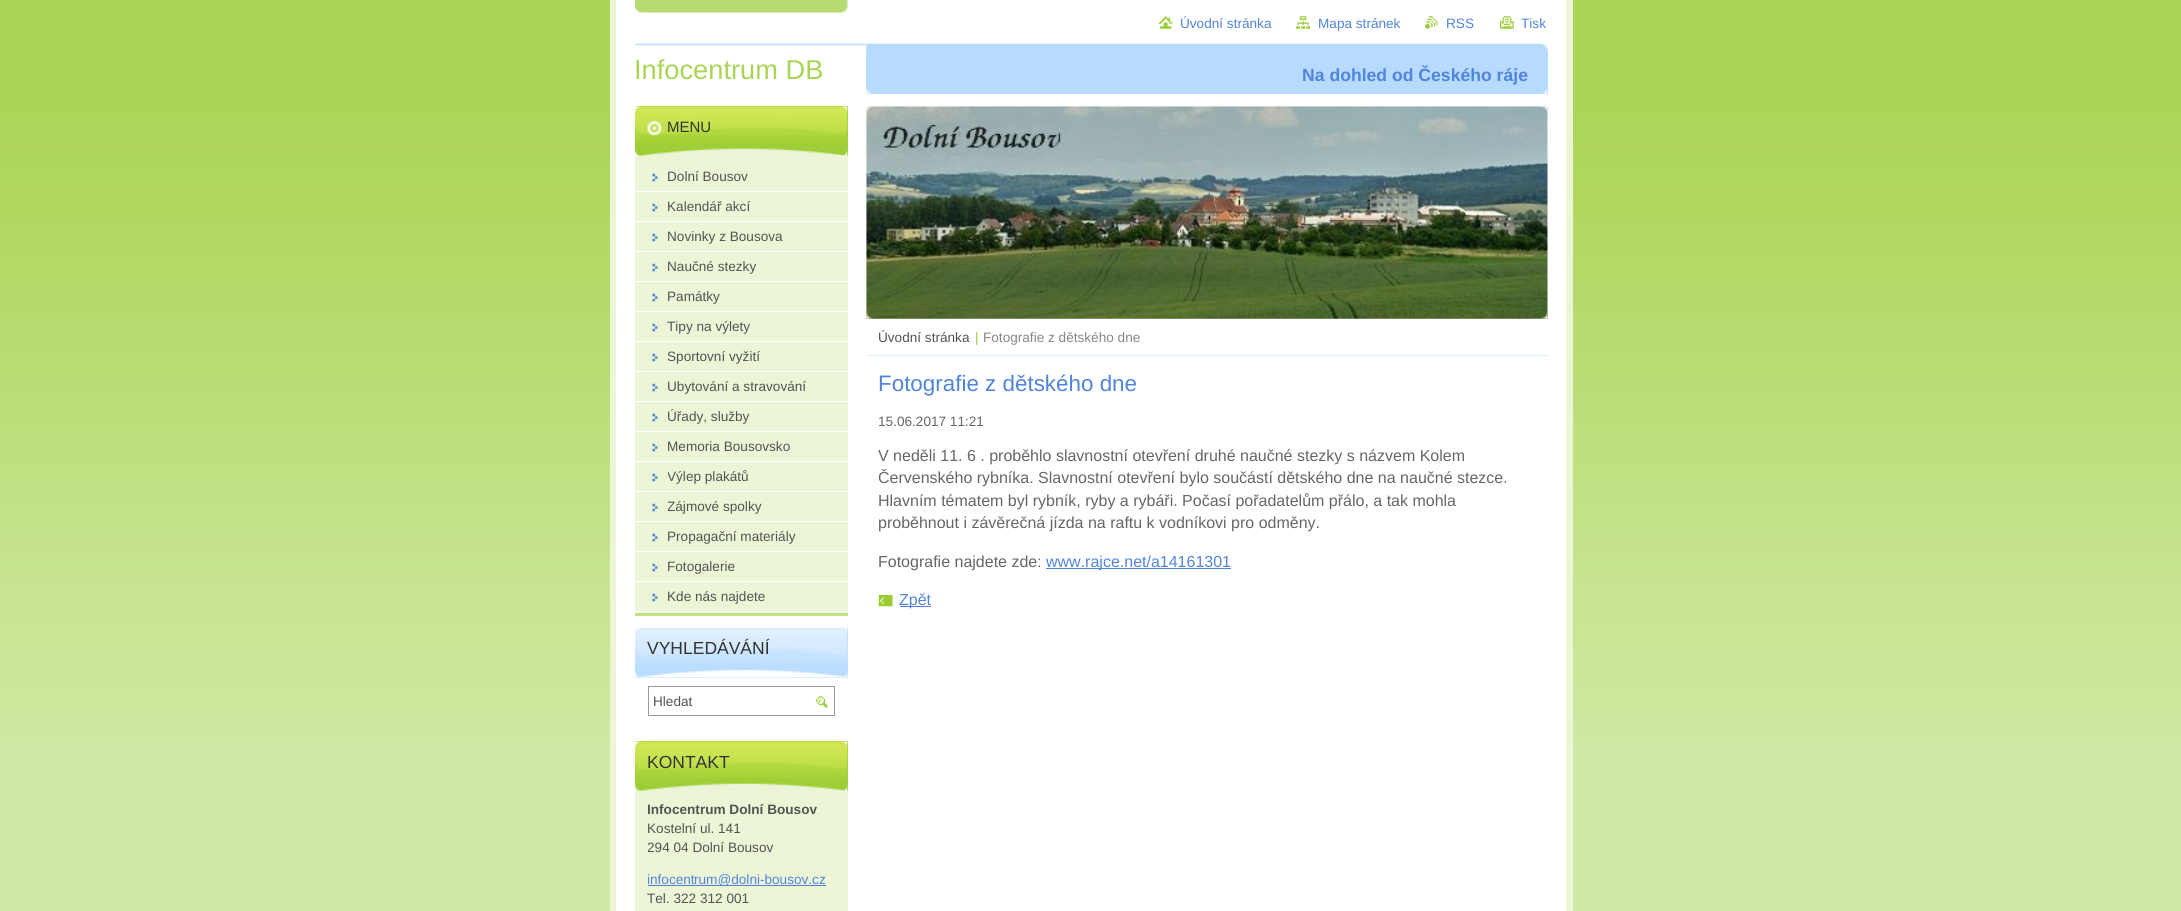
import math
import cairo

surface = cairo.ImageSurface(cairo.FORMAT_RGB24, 2181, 911)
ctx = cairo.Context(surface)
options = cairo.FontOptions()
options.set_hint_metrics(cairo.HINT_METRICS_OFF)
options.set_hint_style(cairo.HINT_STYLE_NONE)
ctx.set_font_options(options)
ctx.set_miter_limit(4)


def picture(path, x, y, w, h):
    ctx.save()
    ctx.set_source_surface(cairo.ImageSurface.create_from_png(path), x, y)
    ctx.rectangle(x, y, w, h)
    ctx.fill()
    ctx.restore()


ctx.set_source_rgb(0.824, 0.914, 0.647)
ctx.paint()
picture("img1.png", 0, 0, 2181, 743)
ctx.set_source_rgb(1, 1, 1)
ctx.rectangle(616, 0, 950, 911)
ctx.fill()
picture("img2.png", 635, 0, 213, 13)
ctx.set_source_rgb(0.922, 0.961, 0.839)
ctx.rectangle(1566, 0, 7, 911)
ctx.fill()
ctx.rectangle(610, 0, 6, 911)
ctx.fill()
picture("img3.png", 1158, 16, 15, 13)
ctx.select_font_face("Liberation Sans")
ctx.set_font_size(13.6)
ctx.set_source_rgb(0.318, 0.518, 0.859)
ctx.move_to(1180, 28)
ctx.show_text("Úvodní stránka")
picture("img4.png", 1296, 16, 14, 13)
ctx.move_to(1318, 28)
ctx.show_text("Mapa stránek")
picture("img5.png", 1425, 16, 13, 13)
ctx.move_to(1446, 28)
ctx.show_text("RSS")
picture("img6.png", 1500, 16, 14, 13)
ctx.move_to(1521, 28)
ctx.show_text("Tisk")
picture("img7.png", 635, 43, 913, 9)
ctx.set_font_size(27.25)
ctx.set_source_rgb(0.667, 0.835, 0.333)
ctx.move_to(634, 79)
ctx.show_text("Infocentrum DB")
ctx.set_source_rgb(0.718, 0.859, 1)
ctx.rectangle(866, 51, 682, 43)
ctx.fill()
picture("img8.png", 866, 87, 682, 7)
ctx.select_font_face("Liberation Sans", cairo.FONT_SLANT_NORMAL, cairo.FONT_WEIGHT_BOLD)
ctx.set_font_size(17.6)
ctx.set_source_rgb(0.318, 0.518, 0.859)
ctx.move_to(1302, 81)
ctx.show_text("Na dohled od Českého ráje")
ctx.set_source_rgb(0.761, 0.878, 0.518)
ctx.rectangle(635, 613, 213, 3)
ctx.fill()
ctx.set_source_rgb(0.922, 0.961, 0.839)
ctx.rectangle(635, 156, 213, 457)
ctx.fill()
ctx.set_source_rgb(0.624, 0.812, 0.212)
ctx.rectangle(635, 106, 213, 50)
ctx.fill()
picture("img9.png", 635, 106, 213, 37)
picture("img10.png", 635, 148, 213, 9)
ctx.select_font_face("Liberation Sans")
ctx.set_font_size(15)
ctx.set_source_rgb(0.2, 0.2, 0.2)
ctx.move_to(667, 132)
ctx.show_text("MENU")
picture("img11.png", 652, 173, 6, 9)
ctx.set_source_rgb(1, 1, 1)
ctx.rectangle(635, 191, 213, 1)
ctx.fill()
ctx.set_font_size(13.6)
ctx.set_source_rgb(0.325, 0.325, 0.325)
ctx.move_to(667, 181)
ctx.show_text("Dolní Bousov")
picture("img11.png", 652, 203, 6, 9)
ctx.set_source_rgb(1, 1, 1)
ctx.rectangle(635, 221, 213, 1)
ctx.fill()
ctx.set_source_rgb(0.325, 0.325, 0.325)
ctx.move_to(667, 211)
ctx.show_text("Kalendář akcí")
picture("img11.png", 652, 233, 6, 9)
ctx.set_source_rgb(1, 1, 1)
ctx.rectangle(635, 251, 213, 1)
ctx.fill()
ctx.set_source_rgb(0.325, 0.325, 0.325)
ctx.move_to(667, 241)
ctx.show_text("Novinky z Bousova")
picture("img11.png", 652, 263, 6, 9)
ctx.set_source_rgb(1, 1, 1)
ctx.rectangle(635, 281, 213, 1)
ctx.fill()
ctx.set_source_rgb(0.325, 0.325, 0.325)
ctx.move_to(667, 271)
ctx.show_text("Naučné stezky")
picture("img11.png", 652, 293, 6, 9)
ctx.set_source_rgb(1, 1, 1)
ctx.rectangle(635, 311, 213, 1)
ctx.fill()
ctx.set_source_rgb(0.325, 0.325, 0.325)
ctx.move_to(667, 301)
ctx.show_text("Památky")
picture("img11.png", 652, 323, 6, 9)
ctx.set_source_rgb(1, 1, 1)
ctx.rectangle(635, 341, 213, 1)
ctx.fill()
ctx.set_source_rgb(0.325, 0.325, 0.325)
ctx.move_to(667, 331)
ctx.show_text("Tipy na výlety")
picture("img11.png", 652, 353, 6, 9)
ctx.set_source_rgb(1, 1, 1)
ctx.rectangle(635, 371, 213, 1)
ctx.fill()
ctx.set_source_rgb(0.325, 0.325, 0.325)
ctx.move_to(667, 361)
ctx.show_text("Sportovní vyžití")
picture("img11.png", 652, 383, 6, 9)
ctx.set_source_rgb(1, 1, 1)
ctx.rectangle(635, 401, 213, 1)
ctx.fill()
ctx.save()
ctx.rectangle(668, 373, 167, 28)
ctx.clip()
ctx.set_source_rgb(0.325, 0.325, 0.325)
ctx.move_to(667, 391)
ctx.show_text("Ubytování a stravování")
ctx.restore()
picture("img11.png", 652, 413, 6, 9)
ctx.rectangle(635, 431, 213, 1)
ctx.fill()
ctx.save()
ctx.rectangle(668, 403, 167, 28)
ctx.clip()
ctx.set_source_rgb(0.325, 0.325, 0.325)
ctx.move_to(667, 421)
ctx.show_text("Úřady, služby")
ctx.restore()
picture("img11.png", 652, 443, 6, 9)
ctx.rectangle(635, 461, 213, 1)
ctx.fill()
ctx.set_source_rgb(0.325, 0.325, 0.325)
ctx.move_to(667, 451)
ctx.show_text("Memoria Bousovsko")
picture("img11.png", 652, 473, 6, 9)
ctx.set_source_rgb(1, 1, 1)
ctx.rectangle(635, 491, 213, 1)
ctx.fill()
ctx.save()
ctx.rectangle(668, 463, 167, 28)
ctx.clip()
ctx.set_source_rgb(0.325, 0.325, 0.325)
ctx.move_to(667, 481)
ctx.show_text("Výlep plakátů")
ctx.restore()
picture("img11.png", 652, 503, 6, 9)
ctx.rectangle(635, 521, 213, 1)
ctx.fill()
ctx.save()
ctx.rectangle(668, 493, 167, 28)
ctx.clip()
ctx.set_source_rgb(0.325, 0.325, 0.325)
ctx.move_to(667, 511)
ctx.show_text("Zájmové spolky")
ctx.restore()
picture("img11.png", 652, 533, 6, 9)
ctx.rectangle(635, 551, 213, 1)
ctx.fill()
ctx.set_source_rgb(0.325, 0.325, 0.325)
ctx.move_to(667, 541)
ctx.show_text("Propagační materiály")
picture("img11.png", 652, 563, 6, 9)
ctx.set_source_rgb(1, 1, 1)
ctx.rectangle(635, 581, 213, 1)
ctx.fill()
ctx.set_source_rgb(0.325, 0.325, 0.325)
ctx.move_to(667, 571)
ctx.show_text("Fotogalerie")
picture("img11.png", 652, 593, 6, 9)
ctx.set_source_rgb(1, 1, 1)
ctx.rectangle(635, 611, 213, 1)
ctx.fill()
ctx.set_source_rgb(0.325, 0.325, 0.325)
ctx.move_to(667, 601)
ctx.show_text("Kde nás najdete")
ctx.set_source_rgb(0.733, 0.867, 1)
ctx.rectangle(635, 628, 213, 50)
ctx.fill()
picture("img12.png", 635, 627, 213, 37)
picture("img13.png", 635, 670, 213, 8)
ctx.set_font_size(17.5)
ctx.set_source_rgb(0.2, 0.2, 0.2)
ctx.move_to(647, 654)
ctx.show_text("VYHLEDÁVÁNÍ")
ctx.rectangle(648.5, 686.5, 186, 29)
ctx.set_source_rgb(0.6, 0.6, 0.6)
ctx.set_line_width(1)
ctx.stroke()
ctx.set_font_size(13.6)
ctx.set_source_rgb(0.325, 0.325, 0.325)
ctx.move_to(653, 706)
ctx.show_text("Hledat")
picture("img14.png", 816, 696, 12, 12)
ctx.set_source_rgb(0.922, 0.961, 0.839)
ctx.rectangle(635, 791, 213, 120)
ctx.fill()
ctx.set_source_rgb(0.624, 0.812, 0.212)
ctx.rectangle(635, 741, 213, 50)
ctx.fill()
picture("img15.png", 635, 741, 213, 37)
picture("img16.png", 635, 783, 213, 9)
ctx.set_font_size(17.5)
ctx.set_source_rgb(0.2, 0.2, 0.2)
ctx.move_to(647, 768)
ctx.show_text("KONTAKT")
ctx.save()
ctx.rectangle(648, 800, 187, 108)
ctx.clip()
ctx.select_font_face("Liberation Sans", cairo.FONT_SLANT_NORMAL, cairo.FONT_WEIGHT_BOLD)
ctx.set_font_size(13.6)
ctx.set_source_rgb(0.325, 0.325, 0.325)
ctx.move_to(647, 814)
ctx.show_text("Infocentrum Dolní Bousov")
ctx.restore()
ctx.set_font_size(13.6)
ctx.set_source_rgb(0.325, 0.325, 0.325)
ctx.move_to(647, 833)
ctx.show_text("Kostelní ul. 141")
ctx.save()
ctx.rectangle(648, 800, 187, 108)
ctx.clip()
ctx.move_to(647, 852)
ctx.show_text("294 04 Dolní Bousov")
ctx.set_source_rgb(0.318, 0.518, 0.859)
ctx.move_to(647, 884)
ctx.show_text("infocent")
ctx.restore()
ctx.set_source_rgb(0.318, 0.518, 0.859)
ctx.rectangle(648, 885, 178, 1)
ctx.fill()
ctx.move_to(694, 884)
ctx.show_text("rum@dolni-bousov.cz")
ctx.set_source_rgb(0.325, 0.325, 0.325)
ctx.move_to(647, 903)
ctx.show_text("Tel. 322 312 001")
picture("img17.png", 866, 106, 682, 213)
picture("img18.png", 866, 106, 682, 213)
ctx.set_source_rgb(0.859, 0.929, 1)
ctx.rectangle(866, 355, 682, 1)
ctx.fill()
ctx.set_source_rgb(0.325, 0.325, 0.325)
ctx.move_to(878, 342)
ctx.show_text("Úvodní stránka")
ctx.set_source_rgb(0.6, 0.8, 0.2)
ctx.move_to(975, 342)
ctx.show_text("|")
ctx.set_source_rgb(0.529, 0.529, 0.529)
ctx.move_to(983, 342)
ctx.show_text("Fotografie z dětského dne")
ctx.set_font_size(22.4)
ctx.set_source_rgb(0.318, 0.518, 0.859)
ctx.move_to(878, 391)
ctx.show_text("Fotografie z dětského dne")
ctx.set_font_size(13.6)
ctx.set_source_rgb(0.4, 0.4, 0.4)
ctx.move_to(878, 426)
ctx.show_text("15.06.2017 11:21")
ctx.set_font_size(16)
ctx.move_to(878, 461)
ctx.show_text("V neděli 11. 6 . proběhlo slavnostní otevření druhé naučné stezky s názvem Kolem")
ctx.move_to(878, 483)
ctx.show_text("Červenského rybníka. Slavnostní otevření bylo součástí dětského dne na naučné stezce.")
ctx.move_to(878, 506)
ctx.show_text("Hlavním tématem byl rybník, ryby a rybáři. Počasí pořadatelům přálo, a tak mohla")
ctx.move_to(878, 528)
ctx.show_text("proběhnout i závěrečná jízda na raftu k vodníkovi pro odměny.")
ctx.move_to(878, 567)
ctx.show_text("Fotografie najdete zde:")
ctx.set_source_rgb(0.318, 0.518, 0.859)
ctx.rectangle(1046, 568, 185, 1)
ctx.fill()
ctx.move_to(1046, 567)
ctx.show_text("www.rajce.net/a14161301")
picture("img19.png", 878, 595, 15, 12)
ctx.rectangle(900, 606, 31, 1)
ctx.fill()
ctx.move_to(899, 605)
ctx.show_text("Zpět")
surface.write_to_png("page.png")
